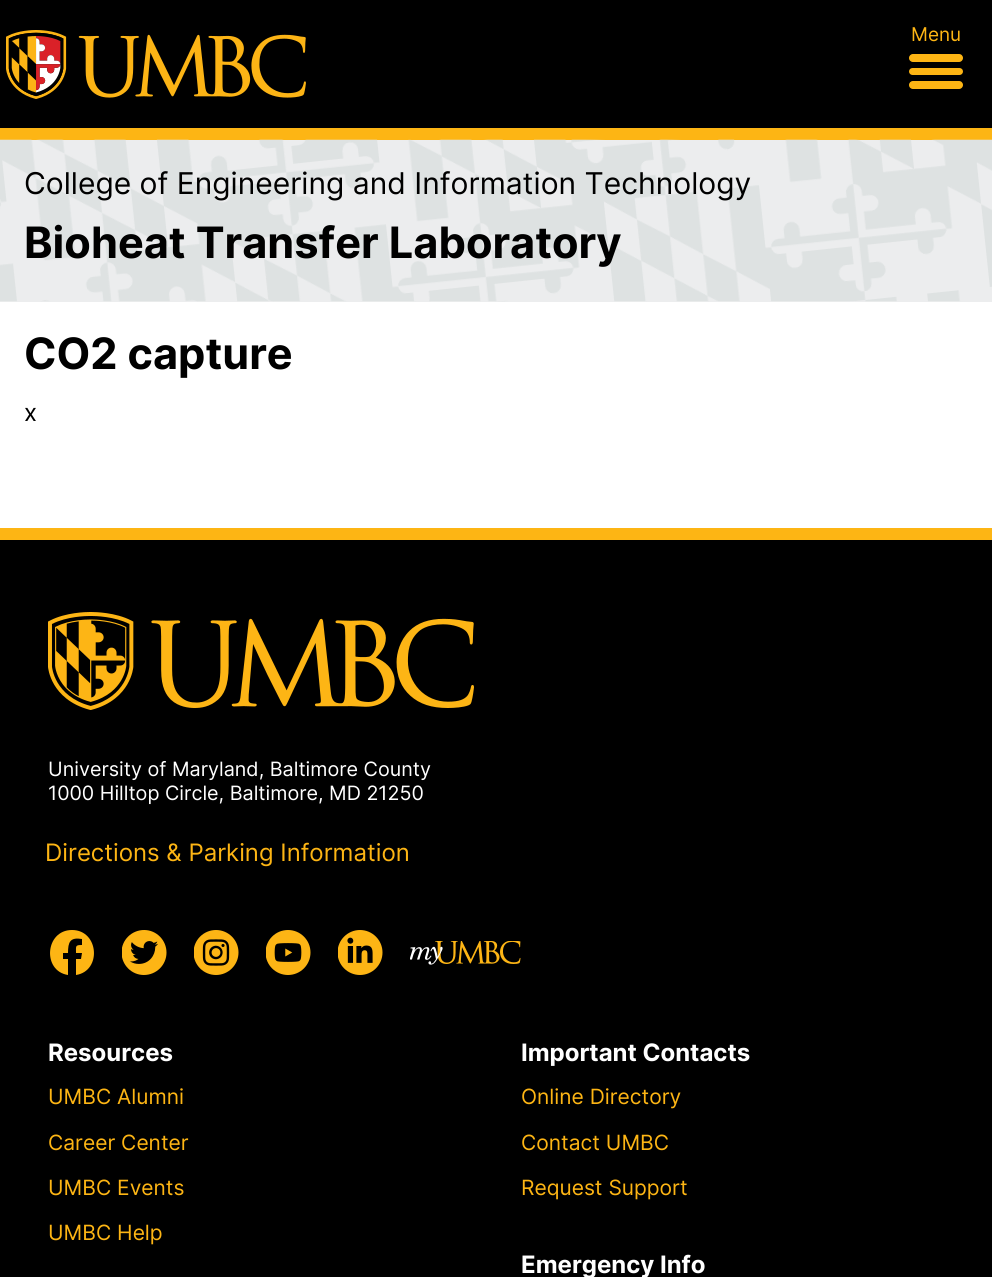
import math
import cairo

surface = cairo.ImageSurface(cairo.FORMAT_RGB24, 992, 1277)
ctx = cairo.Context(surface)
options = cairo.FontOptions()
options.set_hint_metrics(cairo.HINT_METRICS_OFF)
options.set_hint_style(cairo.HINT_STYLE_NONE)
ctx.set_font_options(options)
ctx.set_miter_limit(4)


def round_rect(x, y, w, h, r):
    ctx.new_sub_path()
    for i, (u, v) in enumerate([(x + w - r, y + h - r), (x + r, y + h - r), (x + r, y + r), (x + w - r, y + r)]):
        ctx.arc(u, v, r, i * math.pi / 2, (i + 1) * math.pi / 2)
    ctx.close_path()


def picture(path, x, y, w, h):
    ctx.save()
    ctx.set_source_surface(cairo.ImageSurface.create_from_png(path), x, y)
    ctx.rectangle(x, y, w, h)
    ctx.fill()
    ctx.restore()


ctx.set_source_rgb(1, 1, 1)
ctx.paint()
ctx.set_source_rgb(0.992, 0.71, 0.082)
ctx.rectangle(0, 128, 992, 12)
ctx.fill()
ctx.set_source_rgb(0, 0, 0)
ctx.rectangle(0, 0, 992, 128)
ctx.fill()
picture("img1.png", 6, 30, 300, 69)
ctx.select_font_face("Inter")
ctx.set_font_size(19)
ctx.set_source_rgb(0.992, 0.71, 0.082)
ctx.move_to(911, 41)
ctx.show_text("Menu")
round_rect(909, 68, 54, 7, 3.5)
ctx.fill()
round_rect(909, 54, 54, 8, 4)
ctx.fill()
round_rect(909, 81, 54, 8, 4)
ctx.fill()
ctx.set_source_rgb(0.922, 0.929, 0.933)
ctx.rectangle(0, 140, 992, 162)
ctx.fill()
picture("img2.png", 0, 139, 992, 163)
ctx.set_font_size(30)
ctx.set_source_rgb(0, 0, 0)
ctx.move_to(24, 194)
ctx.show_text("College of Engineering and Information Technology")
ctx.select_font_face("Inter", cairo.FONT_SLANT_NORMAL, cairo.FONT_WEIGHT_BOLD)
ctx.set_font_size(43.25)
ctx.move_to(24, 258)
ctx.show_text("Bioheat Transfer Laboratory")
ctx.move_to(24, 369)
ctx.show_text("CO2 capture")
ctx.select_font_face("Inter")
ctx.set_font_size(24)
ctx.move_to(24, 421)
ctx.show_text("x")
ctx.rectangle(0, 540, 992, 737)
ctx.fill()
ctx.set_source_rgb(0.992, 0.71, 0.082)
ctx.rectangle(0, 528, 992, 12)
ctx.fill()
picture("img3.png", 48, 612, 426, 98)
ctx.set_font_size(19.75)
ctx.set_source_rgb(1, 1, 1)
ctx.move_to(48, 776)
ctx.show_text("University of Maryland, Baltimore County")
ctx.move_to(48, 800)
ctx.show_text("1000 Hilltop Circle, Baltimore, MD 21250")
ctx.set_font_size(24)
ctx.set_source_rgb(0.992, 0.71, 0.082)
ctx.move_to(45, 861)
ctx.show_text("Directions & Parking Information")
ctx.new_path()
ctx.move_to(72, 930)
ctx.curve_to(45, 930, 42, 971, 68, 975)
ctx.line_to(68, 959)
ctx.line_to(63, 959)
ctx.line_to(63, 953)
ctx.line_to(68, 953)
ctx.curve_to(68, 942, 70, 937, 82, 939)
ctx.line_to(82, 945)
ctx.curve_to(75, 945, 76, 946, 76, 953)
ctx.line_to(82, 953)
ctx.line_to(81, 959)
ctx.line_to(76, 959)
ctx.line_to(76, 975)
ctx.curve_to(102, 971, 99, 930, 72, 930)
ctx.close_path()
ctx.fill()
picture("img4.png", 122, 930, 45, 45)
picture("img5.png", 194, 930, 45, 45)
picture("img6.png", 266, 930, 45, 45)
picture("img7.png", 338, 930, 45, 45)
picture("img8.png", 410, 941, 111, 24)
ctx.select_font_face("Inter", cairo.FONT_SLANT_NORMAL, cairo.FONT_WEIGHT_BOLD)
ctx.set_source_rgb(1, 1, 1)
ctx.move_to(48, 1061)
ctx.show_text("Resources")
ctx.select_font_face("Inter")
ctx.set_font_size(21)
ctx.set_source_rgb(0.992, 0.71, 0.082)
ctx.move_to(48, 1104)
ctx.show_text("UMBC Alumni")
ctx.move_to(48, 1150)
ctx.show_text("Career Center")
ctx.move_to(48, 1195)
ctx.show_text("UMBC Events")
ctx.move_to(48, 1240)
ctx.show_text("UMBC Help")
ctx.select_font_face("Inter", cairo.FONT_SLANT_NORMAL, cairo.FONT_WEIGHT_BOLD)
ctx.set_font_size(24)
ctx.set_source_rgb(1, 1, 1)
ctx.move_to(521, 1061)
ctx.show_text("Important Contacts")
ctx.select_font_face("Inter")
ctx.set_font_size(21)
ctx.set_source_rgb(0.992, 0.71, 0.082)
ctx.move_to(521, 1104)
ctx.show_text("Online Directory")
ctx.move_to(521, 1150)
ctx.show_text("Contact UMBC")
ctx.move_to(521, 1195)
ctx.show_text("Request Support")
ctx.select_font_face("Inter", cairo.FONT_SLANT_NORMAL, cairo.FONT_WEIGHT_BOLD)
ctx.set_font_size(24)
ctx.set_source_rgb(1, 1, 1)
ctx.move_to(521, 1273)
ctx.show_text("Emergency Info")
surface.write_to_png("page.png")
